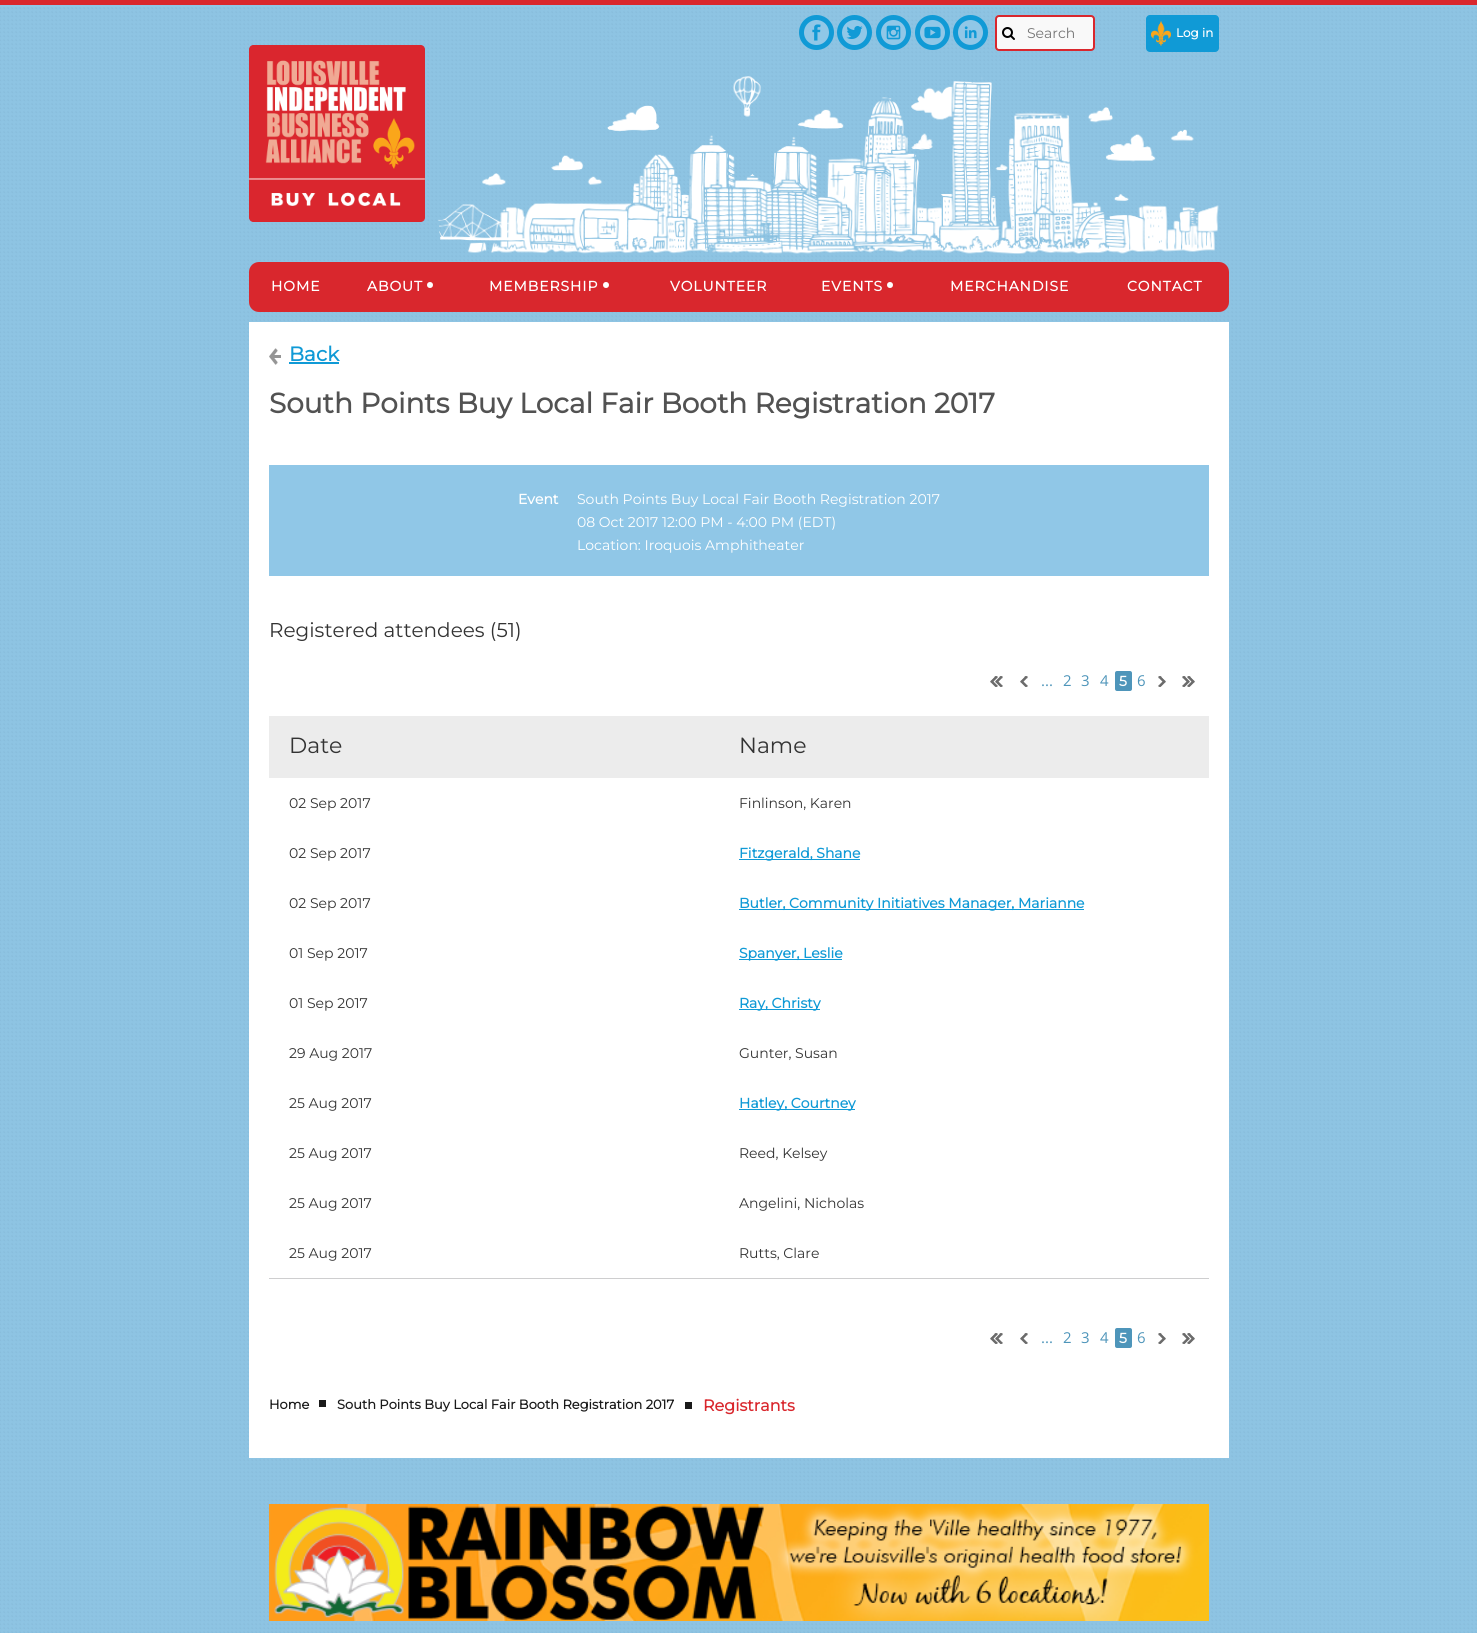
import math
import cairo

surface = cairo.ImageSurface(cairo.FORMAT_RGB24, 1477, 1633)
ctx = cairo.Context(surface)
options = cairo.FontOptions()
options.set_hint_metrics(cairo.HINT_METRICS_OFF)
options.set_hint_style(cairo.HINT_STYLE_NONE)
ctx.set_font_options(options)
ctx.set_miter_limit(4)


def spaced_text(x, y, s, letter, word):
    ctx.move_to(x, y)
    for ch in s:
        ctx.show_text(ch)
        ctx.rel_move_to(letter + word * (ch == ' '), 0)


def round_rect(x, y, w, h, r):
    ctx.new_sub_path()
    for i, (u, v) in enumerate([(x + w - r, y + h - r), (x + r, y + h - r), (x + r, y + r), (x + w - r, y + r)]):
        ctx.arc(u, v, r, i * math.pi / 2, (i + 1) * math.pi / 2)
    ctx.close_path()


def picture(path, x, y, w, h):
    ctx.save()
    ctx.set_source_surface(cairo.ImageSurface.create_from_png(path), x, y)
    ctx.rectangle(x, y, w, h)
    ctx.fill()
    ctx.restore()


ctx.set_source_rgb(0.565, 0.78, 0.906)
ctx.paint()
picture("img1.png", 0, 7, 1477, 1626)
ctx.set_source_rgb(0.851, 0.153, 0.176)
ctx.rectangle(0, 0, 1477, 5)
ctx.fill()
picture("img2.png", 438, 76, 781, 178)
ctx.set_source_rgb(0.063, 0.604, 0.839)
ctx.arc(816.5, 32.5, 17.5, 0, 2 * math.pi)
ctx.fill()
picture("img3.png", 804, 20, 25, 25)
ctx.arc(854.5, 32.5, 17.5, 0, 2 * math.pi)
ctx.fill()
picture("img4.png", 842, 20, 25, 25)
ctx.arc(893.5, 32.5, 17.5, 0, 2 * math.pi)
ctx.fill()
picture("img5.png", 881, 20, 25, 25)
ctx.arc(932.5, 32.5, 17.5, 0, 2 * math.pi)
ctx.fill()
picture("img6.png", 920, 20, 25, 25)
ctx.arc(970.5, 32.5, 17.5, 0, 2 * math.pi)
ctx.fill()
picture("img7.png", 958, 20, 25, 25)
ctx.set_source_rgb(0.976, 0.976, 0.976)
round_rect(996, 16, 98, 34, 3)
ctx.fill_preserve()
ctx.set_source_rgb(0.851, 0.153, 0.176)
ctx.stroke()
picture("img8.png", 1002, 27, 13, 13)
ctx.select_font_face("Montserrat Thin")
ctx.set_font_size(14)
ctx.set_source_rgb(0.459, 0.459, 0.459)
ctx.move_to(1027, 38)
ctx.show_text("Search")
ctx.set_source_rgb(0.063, 0.604, 0.839)
round_rect(1146, 15, 73, 37, 4)
ctx.fill()
picture("img9.png", 1151, 21, 20, 25)
ctx.select_font_face("Montserrat", cairo.FONT_SLANT_NORMAL, cairo.FONT_WEIGHT_BOLD)
ctx.set_font_size(12)
ctx.set_source_rgb(1, 1, 1)
ctx.move_to(1176, 37)
ctx.show_text("Log in")
picture("img10.png", 249, 45, 176, 177)
ctx.set_source_rgb(0.851, 0.153, 0.176)
round_rect(249, 262, 980, 50, 10)
ctx.fill()
ctx.set_font_size(14)
ctx.set_source_rgb(1, 1, 1)
spaced_text(271, 291, "HOME", 0.9, 0)
spaced_text(367, 291, "ABOUT", 0.9, 0)
ctx.new_path()
ctx.arc(430, 285, 3, 0, 2 * math.pi)
ctx.fill()
spaced_text(489, 291, "MEMBERSHIP", 0.9, 0)
ctx.new_path()
ctx.arc(606, 285, 3, 0, 2 * math.pi)
ctx.fill()
spaced_text(670, 291, "VOLUNTEER", 0.9, 0)
spaced_text(821, 291, "EVENTS", 0.9, 0)
ctx.new_path()
ctx.arc(890, 285, 3, 0, 2 * math.pi)
ctx.fill()
spaced_text(950, 291, "MERCHANDISE", 0.9, 0)
spaced_text(1127, 291, "CONTACT", 0.9, 0)
ctx.rectangle(249, 322, 980, 1136)
ctx.fill()
picture("img11.png", 269, 348, 12, 17)
ctx.set_font_size(20)
ctx.set_source_rgb(0.063, 0.604, 0.839)
ctx.move_to(289, 361)
ctx.show_text("Back")
ctx.rectangle(289, 362, 50, 2)
ctx.fill()
ctx.set_font_size(28)
ctx.set_source_rgb(0.322, 0.322, 0.322)
ctx.move_to(269, 413)
ctx.show_text("South Points Buy Local Fair Booth Registration 2017")
ctx.set_source_rgb(0.565, 0.78, 0.906)
ctx.rectangle(269, 465, 940, 111)
ctx.fill()
ctx.set_font_size(14)
ctx.set_source_rgb(1, 1, 1)
ctx.move_to(518, 504)
ctx.show_text("Event")
ctx.select_font_face("Montserrat Thin")
ctx.move_to(577, 504)
ctx.show_text("South Points Buy Local Fair Booth Registration 2017")
ctx.move_to(577, 527)
ctx.show_text("08 Oct 2017 12:00 PM - 4:00 PM (EDT)")
ctx.move_to(577, 550)
ctx.show_text("Location: Iroquois Amphitheater")
ctx.set_font_size(20)
ctx.set_source_rgb(0.2, 0.2, 0.2)
ctx.move_to(269, 637)
ctx.show_text("Registered attendees (51)")
picture("img12.png", 990, 676, 13, 11)
picture("img13.png", 1020, 676, 8, 11)
ctx.select_font_face("Open Sans")
ctx.set_font_size(15)
ctx.set_source_rgb(0.306, 0.584, 0.729)
ctx.move_to(1041, 686)
ctx.show_text("...")
ctx.move_to(1063, 686)
ctx.show_text("2")
ctx.move_to(1081, 686)
ctx.show_text("3")
ctx.move_to(1100, 686)
ctx.show_text("4")
round_rect(1115, 671, 17, 20, 2)
ctx.fill()
ctx.select_font_face("Montserrat", cairo.FONT_SLANT_NORMAL, cairo.FONT_WEIGHT_BOLD)
ctx.set_font_size(14)
ctx.set_source_rgb(1, 1, 1)
ctx.move_to(1119, 686)
ctx.show_text("5")
ctx.select_font_face("Open Sans")
ctx.set_font_size(15)
ctx.set_source_rgb(0.306, 0.584, 0.729)
ctx.move_to(1137, 686)
ctx.show_text("6")
picture("img14.png", 1158, 676, 8, 11)
picture("img15.png", 1182, 676, 13, 11)
ctx.set_source_rgb(0.808, 0.808, 0.812)
ctx.rectangle(269, 1278, 940, 1)
ctx.fill()
ctx.set_source_rgb(0.925, 0.925, 0.925)
ctx.rectangle(269, 716, 940, 62)
ctx.fill()
ctx.select_font_face("Montserrat Thin")
ctx.set_font_size(22)
ctx.set_source_rgb(0.2, 0.2, 0.2)
ctx.move_to(289, 753)
ctx.show_text("Date")
ctx.move_to(739, 753)
ctx.show_text("Name")
ctx.set_font_size(14)
ctx.move_to(289, 808)
ctx.show_text("02 Sep 2017")
ctx.move_to(739, 808)
ctx.show_text("Finlinson, Karen")
ctx.move_to(289, 858)
ctx.show_text("02 Sep 2017")
ctx.set_source_rgb(0.063, 0.604, 0.839)
ctx.rectangle(739, 859, 121, 1)
ctx.fill()
ctx.select_font_face("Montserrat", cairo.FONT_SLANT_NORMAL, cairo.FONT_WEIGHT_BOLD)
ctx.move_to(739, 858)
ctx.show_text("Fitzgerald, Shane")
ctx.select_font_face("Montserrat Thin")
ctx.set_source_rgb(0.2, 0.2, 0.2)
ctx.move_to(289, 908)
ctx.show_text("02 Sep 2017")
ctx.set_source_rgb(0.063, 0.604, 0.839)
ctx.rectangle(739, 909, 345, 1)
ctx.fill()
ctx.select_font_face("Montserrat", cairo.FONT_SLANT_NORMAL, cairo.FONT_WEIGHT_BOLD)
ctx.move_to(739, 908)
ctx.show_text("Butler, Community Initiatives Manager, Marianne")
ctx.select_font_face("Montserrat Thin")
ctx.set_source_rgb(0.2, 0.2, 0.2)
ctx.move_to(289, 958)
ctx.show_text("01 Sep 2017")
ctx.set_source_rgb(0.063, 0.604, 0.839)
ctx.rectangle(739, 959, 103, 1)
ctx.fill()
ctx.select_font_face("Montserrat", cairo.FONT_SLANT_NORMAL, cairo.FONT_WEIGHT_BOLD)
ctx.move_to(739, 958)
ctx.show_text("Spanyer, Leslie")
ctx.select_font_face("Montserrat Thin")
ctx.set_source_rgb(0.2, 0.2, 0.2)
ctx.move_to(289, 1008)
ctx.show_text("01 Sep 2017")
ctx.set_source_rgb(0.063, 0.604, 0.839)
ctx.rectangle(739, 1009, 81, 1)
ctx.fill()
ctx.select_font_face("Montserrat", cairo.FONT_SLANT_NORMAL, cairo.FONT_WEIGHT_BOLD)
ctx.move_to(739, 1008)
ctx.show_text("Ray, Christy")
ctx.select_font_face("Montserrat Thin")
ctx.set_source_rgb(0.2, 0.2, 0.2)
ctx.move_to(289, 1058)
ctx.show_text("29 Aug 2017")
ctx.move_to(739, 1058)
ctx.show_text("Gunter, Susan")
ctx.move_to(289, 1108)
ctx.show_text("25 Aug 2017")
ctx.set_source_rgb(0.063, 0.604, 0.839)
ctx.rectangle(739, 1109, 116, 1)
ctx.fill()
ctx.select_font_face("Montserrat", cairo.FONT_SLANT_NORMAL, cairo.FONT_WEIGHT_BOLD)
ctx.move_to(739, 1108)
ctx.show_text("Hatley, Courtney")
ctx.select_font_face("Montserrat Thin")
ctx.set_source_rgb(0.2, 0.2, 0.2)
ctx.move_to(289, 1158)
ctx.show_text("25 Aug 2017")
ctx.move_to(739, 1158)
ctx.show_text("Reed, Kelsey")
ctx.move_to(289, 1208)
ctx.show_text("25 Aug 2017")
ctx.move_to(739, 1208)
ctx.show_text("Angelini, Nicholas")
ctx.move_to(289, 1258)
ctx.show_text("25 Aug 2017")
ctx.move_to(739, 1258)
ctx.show_text("Rutts, Clare")
picture("img12.png", 990, 1333, 13, 11)
picture("img13.png", 1020, 1333, 8, 11)
ctx.select_font_face("Open Sans")
ctx.set_font_size(15)
ctx.set_source_rgb(0.306, 0.584, 0.729)
ctx.move_to(1041, 1343)
ctx.show_text("...")
ctx.move_to(1063, 1343)
ctx.show_text("2")
ctx.move_to(1081, 1343)
ctx.show_text("3")
ctx.move_to(1100, 1343)
ctx.show_text("4")
round_rect(1115, 1328, 17, 20, 2)
ctx.fill()
ctx.select_font_face("Montserrat", cairo.FONT_SLANT_NORMAL, cairo.FONT_WEIGHT_BOLD)
ctx.set_font_size(14)
ctx.set_source_rgb(1, 1, 1)
ctx.move_to(1119, 1343)
ctx.show_text("5")
ctx.select_font_face("Open Sans")
ctx.set_font_size(15)
ctx.set_source_rgb(0.306, 0.584, 0.729)
ctx.move_to(1137, 1343)
ctx.show_text("6")
picture("img14.png", 1158, 1333, 8, 11)
picture("img15.png", 1182, 1333, 13, 11)
ctx.select_font_face("Montserrat", cairo.FONT_SLANT_NORMAL, cairo.FONT_WEIGHT_BOLD)
ctx.set_font_size(13)
ctx.set_source_rgb(0.102, 0.102, 0.102)
ctx.move_to(269, 1409)
ctx.show_text("Home")
ctx.rectangle(319, 1400, 7, 7)
ctx.fill()
ctx.move_to(337, 1409)
ctx.show_text("South Points Buy Local Fair Booth Registration 2017")
ctx.rectangle(685, 1402, 7, 7)
ctx.fill()
ctx.set_font_size(16)
ctx.set_source_rgb(0.851, 0.153, 0.176)
ctx.move_to(703, 1411)
ctx.show_text("Registrants")
picture("img16.png", 269, 1504, 940, 117)
surface.write_to_png("page.png")
